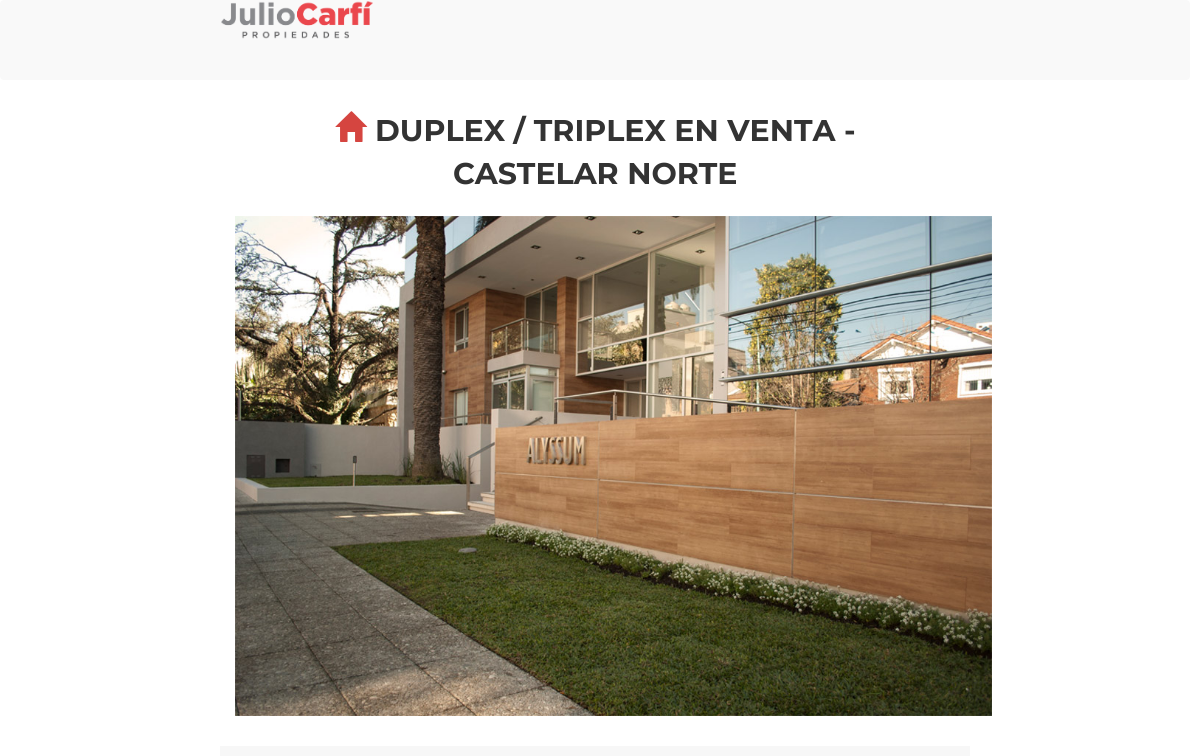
import math
import cairo

surface = cairo.ImageSurface(cairo.FORMAT_RGB24, 1190, 756)
ctx = cairo.Context(surface)
options = cairo.FontOptions()
options.set_hint_metrics(cairo.HINT_METRICS_OFF)
options.set_hint_style(cairo.HINT_STYLE_NONE)
ctx.set_font_options(options)
ctx.set_miter_limit(4)


def round_rect(x, y, w, h, r):
    ctx.new_sub_path()
    for i, (u, v) in enumerate([(x + w - r, y + h - r), (x + r, y + h - r), (x + r, y + r), (x + w - r, y + r)]):
        ctx.arc(u, v, r, i * math.pi / 2, (i + 1) * math.pi / 2)
    ctx.close_path()


def picture(path, x, y, w, h):
    ctx.save()
    ctx.set_source_surface(cairo.ImageSurface.create_from_png(path), x, y)
    ctx.rectangle(x, y, w, h)
    ctx.fill()
    ctx.restore()


ctx.set_source_rgb(1, 1, 1)
ctx.paint()
ctx.set_source_rgb(0.976, 0.976, 0.976)
round_rect(0, 0, 1190, 80, 4)
ctx.fill()
picture("img1.png", 221, 1, 152, 38)
picture("img2.png", 335, 111, 33, 31)
ctx.select_font_face("Montserrat", cairo.FONT_SLANT_NORMAL, cairo.FONT_WEIGHT_BOLD)
ctx.set_font_size(30)
ctx.set_source_rgb(0.2, 0.2, 0.2)
ctx.move_to(375, 141)
ctx.show_text("DUPLEX / TRIPLEX EN VENTA -")
ctx.move_to(453, 184)
ctx.show_text("CASTELAR NORTE")
picture("img3.png", 235, 216, 757, 500)
ctx.set_source_rgb(0.965, 0.965, 0.965)
ctx.rectangle(220, 746, 750, 10)
ctx.fill()
surface.write_to_png("page.png")
